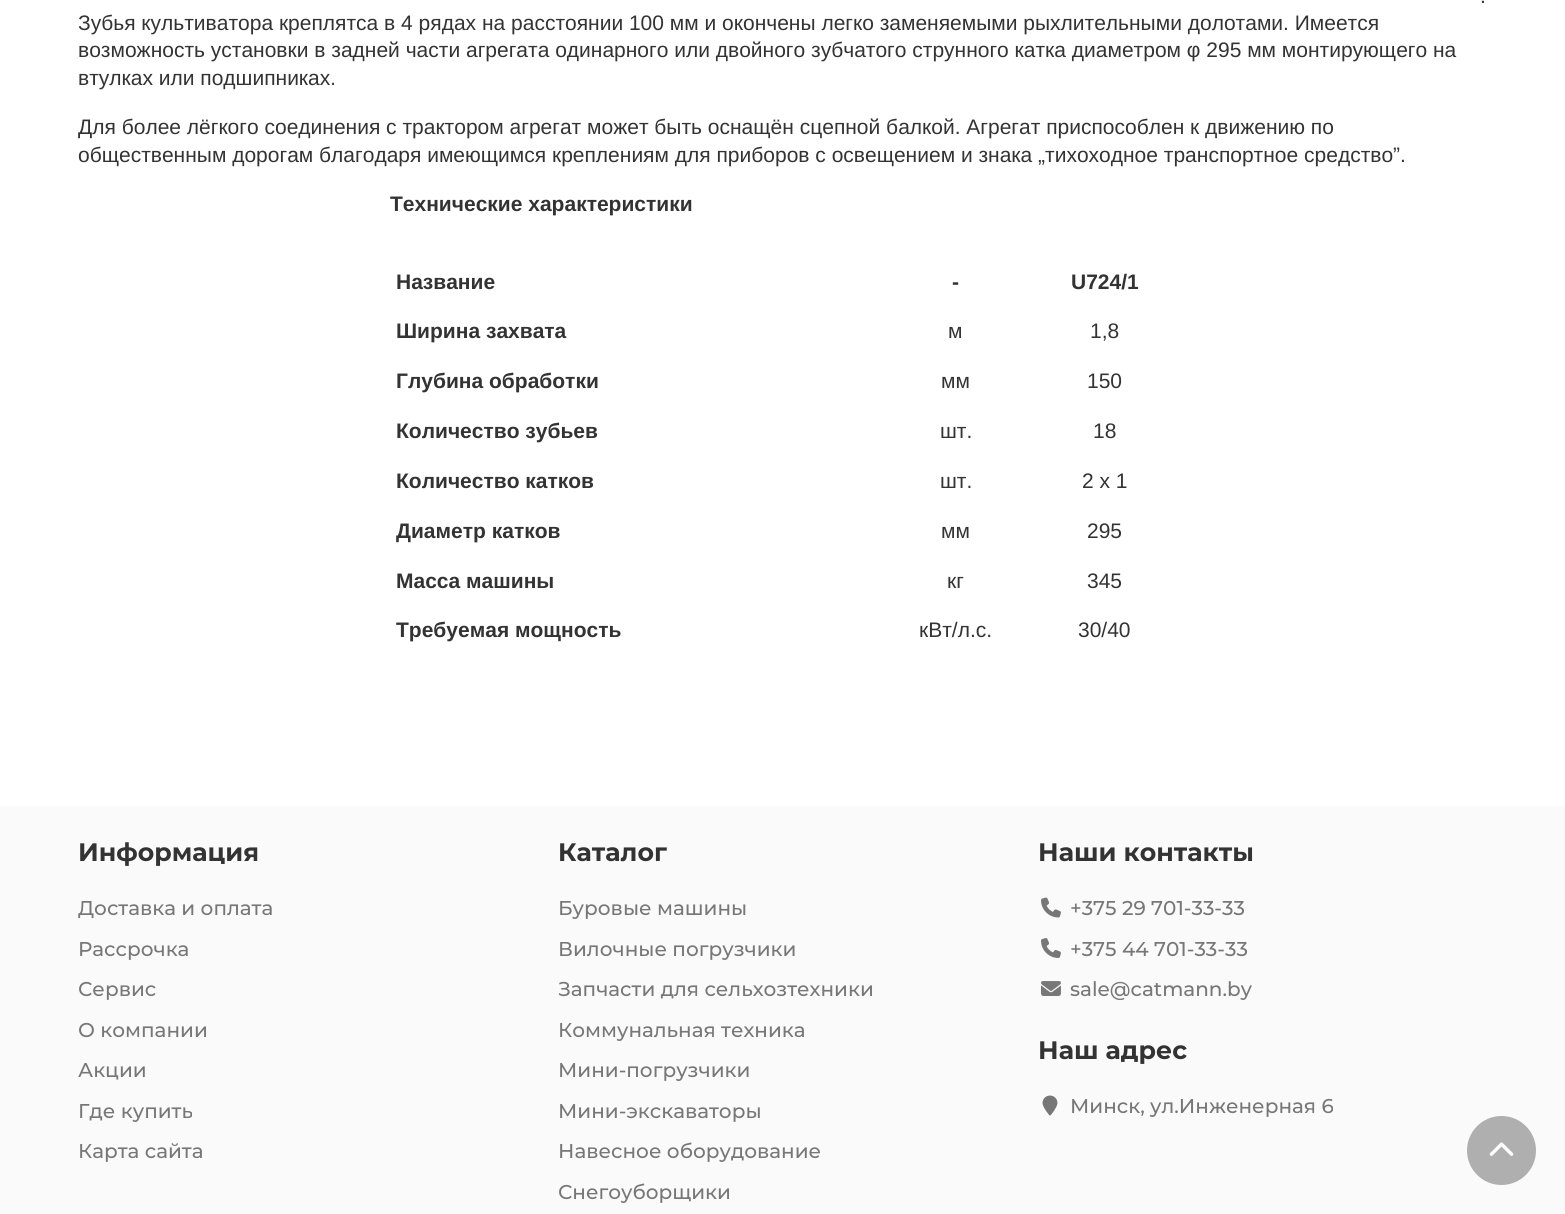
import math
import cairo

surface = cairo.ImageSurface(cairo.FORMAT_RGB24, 1565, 1214)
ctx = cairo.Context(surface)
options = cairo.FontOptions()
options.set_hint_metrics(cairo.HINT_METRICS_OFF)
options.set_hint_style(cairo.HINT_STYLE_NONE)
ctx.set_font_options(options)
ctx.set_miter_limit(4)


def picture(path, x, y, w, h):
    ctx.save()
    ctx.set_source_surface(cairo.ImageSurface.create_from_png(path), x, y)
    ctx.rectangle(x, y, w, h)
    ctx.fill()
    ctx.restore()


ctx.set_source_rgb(1, 1, 1)
ctx.paint()
ctx.select_font_face("Liberation Sans")
ctx.set_font_size(21)
ctx.set_source_rgb(0.2, 0.2, 0.2)
ctx.move_to(1480, 3)
ctx.show_text(".")
ctx.move_to(78, 30)
ctx.show_text("Зубья культиватора креплятса в 4 рядах на расстоянии 100 мм и окончены легко заменяемыми рыхлительными долотами. Имеется")
ctx.move_to(78, 57)
ctx.show_text("возможность установки в задней части агрегата одинарного или двойного зубчатого струнного катка диаметром φ 295 мм монтирующего на")
ctx.move_to(78, 85)
ctx.show_text("втулках или подшипниках.")
ctx.move_to(78, 134)
ctx.show_text("Для более лёгкого соединения с трактором агрегат может быть оснащён сцепной балкой. Агрегат приспособлен к движению по")
ctx.move_to(78, 162)
ctx.show_text("общественным дорогам благодаря имеющимся креплениям для приборов с освещением и знака „тихоходное транспортное средство”.")
ctx.select_font_face("Liberation Sans", cairo.FONT_SLANT_NORMAL, cairo.FONT_WEIGHT_BOLD)
ctx.move_to(390, 211)
ctx.show_text("Технические характеристики")
ctx.move_to(396, 289)
ctx.show_text("Название")
ctx.move_to(952, 289)
ctx.show_text("-")
ctx.move_to(1071, 289)
ctx.show_text("U724/1")
ctx.move_to(396, 338)
ctx.show_text("Ширина захвата")
ctx.select_font_face("Liberation Sans")
ctx.move_to(948, 338)
ctx.show_text("м")
ctx.move_to(1090, 338)
ctx.show_text("1,8")
ctx.select_font_face("Liberation Sans", cairo.FONT_SLANT_NORMAL, cairo.FONT_WEIGHT_BOLD)
ctx.move_to(396, 388)
ctx.show_text("Глубина обработки")
ctx.select_font_face("Liberation Sans")
ctx.move_to(941, 388)
ctx.show_text("мм")
ctx.move_to(1087, 388)
ctx.show_text("150")
ctx.select_font_face("Liberation Sans", cairo.FONT_SLANT_NORMAL, cairo.FONT_WEIGHT_BOLD)
ctx.move_to(396, 438)
ctx.show_text("Количество зубьев")
ctx.select_font_face("Liberation Sans")
ctx.move_to(940, 438)
ctx.show_text("шт.")
ctx.move_to(1093, 438)
ctx.show_text("18")
ctx.select_font_face("Liberation Sans", cairo.FONT_SLANT_NORMAL, cairo.FONT_WEIGHT_BOLD)
ctx.move_to(396, 488)
ctx.show_text("Количество катков")
ctx.select_font_face("Liberation Sans")
ctx.move_to(940, 488)
ctx.show_text("шт.")
ctx.move_to(1082, 488)
ctx.show_text("2 x 1")
ctx.select_font_face("Liberation Sans", cairo.FONT_SLANT_NORMAL, cairo.FONT_WEIGHT_BOLD)
ctx.move_to(396, 538)
ctx.show_text("Диаметр катков")
ctx.select_font_face("Liberation Sans")
ctx.move_to(941, 538)
ctx.show_text("мм")
ctx.move_to(1087, 538)
ctx.show_text("295")
ctx.select_font_face("Liberation Sans", cairo.FONT_SLANT_NORMAL, cairo.FONT_WEIGHT_BOLD)
ctx.move_to(396, 588)
ctx.show_text("Масса машины")
ctx.select_font_face("Liberation Sans")
ctx.move_to(947, 588)
ctx.show_text("кг")
ctx.move_to(1087, 588)
ctx.show_text("345")
ctx.select_font_face("Liberation Sans", cairo.FONT_SLANT_NORMAL, cairo.FONT_WEIGHT_BOLD)
ctx.move_to(396, 637)
ctx.show_text("Требуемая мощность")
ctx.select_font_face("Liberation Sans")
ctx.move_to(919, 637)
ctx.show_text("кВт/л.с.")
ctx.move_to(1078, 637)
ctx.show_text("30/40")
ctx.set_source_rgb(0.98, 0.98, 0.98)
ctx.rectangle(0, 806, 1565, 408)
ctx.fill()
ctx.select_font_face("Montserrat", cairo.FONT_SLANT_NORMAL, cairo.FONT_WEIGHT_BOLD)
ctx.set_font_size(25.25)
ctx.set_source_rgb(0.2, 0.2, 0.2)
ctx.move_to(78, 861)
ctx.show_text("Информация")
ctx.select_font_face("Montserrat Medium")
ctx.set_font_size(20)
ctx.set_source_rgb(0.467, 0.467, 0.467)
ctx.move_to(78, 915)
ctx.show_text("Доставка и оплата")
ctx.move_to(78, 956)
ctx.show_text("Рассрочка")
ctx.move_to(78, 996)
ctx.show_text("Сервис")
ctx.move_to(78, 1037)
ctx.show_text("О компании")
ctx.move_to(78, 1077)
ctx.show_text("Акции")
ctx.move_to(78, 1118)
ctx.show_text("Где купить")
ctx.move_to(78, 1158)
ctx.show_text("Карта сайта")
ctx.select_font_face("Montserrat", cairo.FONT_SLANT_NORMAL, cairo.FONT_WEIGHT_BOLD)
ctx.set_font_size(25.25)
ctx.set_source_rgb(0.2, 0.2, 0.2)
ctx.move_to(558, 861)
ctx.show_text("Каталог")
ctx.select_font_face("Montserrat Medium")
ctx.set_font_size(20)
ctx.set_source_rgb(0.467, 0.467, 0.467)
ctx.move_to(558, 915)
ctx.show_text("Буровые машины")
ctx.move_to(558, 956)
ctx.show_text("Вилочные погрузчики")
ctx.move_to(558, 996)
ctx.show_text("Запчасти для сельхозтехники")
ctx.move_to(558, 1037)
ctx.show_text("Коммунальная техника")
ctx.move_to(558, 1077)
ctx.show_text("Мини-погрузчики")
ctx.move_to(558, 1118)
ctx.show_text("Мини-экскаваторы")
ctx.move_to(558, 1158)
ctx.show_text("Навесное оборудование")
ctx.move_to(558, 1199)
ctx.show_text("Снегоуборщики")
ctx.select_font_face("Montserrat", cairo.FONT_SLANT_NORMAL, cairo.FONT_WEIGHT_BOLD)
ctx.set_font_size(25.25)
ctx.set_source_rgb(0.2, 0.2, 0.2)
ctx.move_to(1038, 861)
ctx.show_text("Наши контакты")
picture("img1.png", 1041, 897, 20, 21)
ctx.select_font_face("Montserrat Medium")
ctx.set_font_size(20)
ctx.set_source_rgb(0.467, 0.467, 0.467)
ctx.move_to(1070, 915)
ctx.show_text("+375 29 701-33-33")
picture("img2.png", 1041, 938, 20, 20)
ctx.move_to(1070, 956)
ctx.show_text("+375 44 701-33-33")
picture("img3.png", 1041, 981, 20, 15)
ctx.move_to(1070, 996)
ctx.show_text("sale@catmann.by")
ctx.select_font_face("Montserrat", cairo.FONT_SLANT_NORMAL, cairo.FONT_WEIGHT_BOLD)
ctx.set_font_size(25.25)
ctx.set_source_rgb(0.2, 0.2, 0.2)
ctx.move_to(1038, 1059)
ctx.show_text("Наш адрес")
picture("img4.png", 1042, 1095, 16, 21)
ctx.select_font_face("Montserrat Medium")
ctx.set_font_size(20)
ctx.set_source_rgb(0.467, 0.467, 0.467)
ctx.move_to(1070, 1113)
ctx.show_text("Минск, ул.Инженерная 6")
ctx.set_source_rgb(0.686, 0.686, 0.686)
ctx.new_path()
ctx.arc(1501.5, 1150.5, 34.5, 0, 2 * math.pi)
ctx.fill()
picture("img5.png", 1489, 1142, 25, 14)
surface.write_to_png("page.png")
